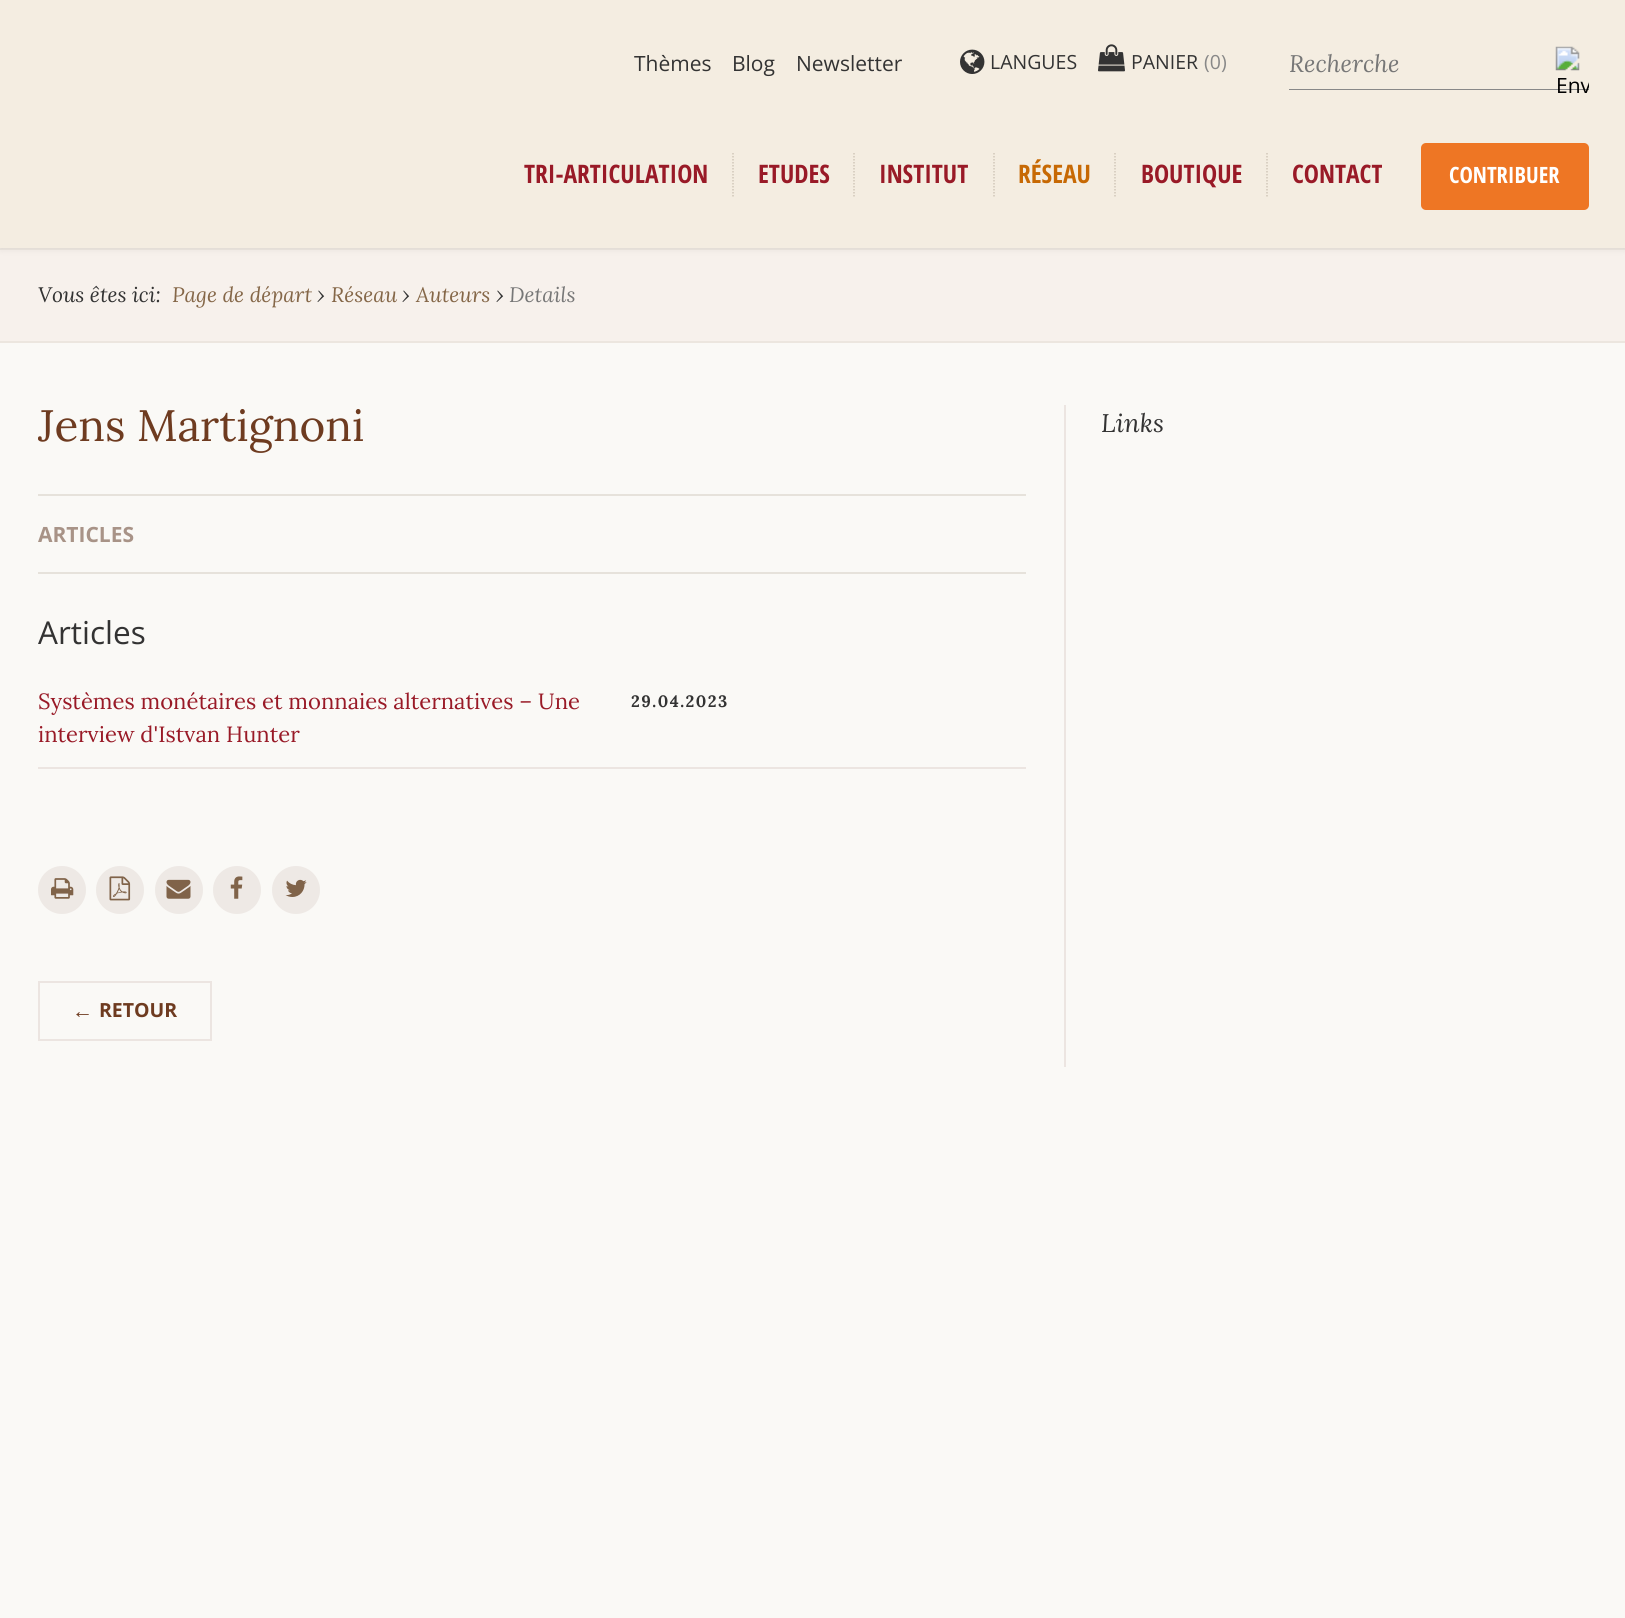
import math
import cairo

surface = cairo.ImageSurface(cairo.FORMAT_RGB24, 1625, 1618)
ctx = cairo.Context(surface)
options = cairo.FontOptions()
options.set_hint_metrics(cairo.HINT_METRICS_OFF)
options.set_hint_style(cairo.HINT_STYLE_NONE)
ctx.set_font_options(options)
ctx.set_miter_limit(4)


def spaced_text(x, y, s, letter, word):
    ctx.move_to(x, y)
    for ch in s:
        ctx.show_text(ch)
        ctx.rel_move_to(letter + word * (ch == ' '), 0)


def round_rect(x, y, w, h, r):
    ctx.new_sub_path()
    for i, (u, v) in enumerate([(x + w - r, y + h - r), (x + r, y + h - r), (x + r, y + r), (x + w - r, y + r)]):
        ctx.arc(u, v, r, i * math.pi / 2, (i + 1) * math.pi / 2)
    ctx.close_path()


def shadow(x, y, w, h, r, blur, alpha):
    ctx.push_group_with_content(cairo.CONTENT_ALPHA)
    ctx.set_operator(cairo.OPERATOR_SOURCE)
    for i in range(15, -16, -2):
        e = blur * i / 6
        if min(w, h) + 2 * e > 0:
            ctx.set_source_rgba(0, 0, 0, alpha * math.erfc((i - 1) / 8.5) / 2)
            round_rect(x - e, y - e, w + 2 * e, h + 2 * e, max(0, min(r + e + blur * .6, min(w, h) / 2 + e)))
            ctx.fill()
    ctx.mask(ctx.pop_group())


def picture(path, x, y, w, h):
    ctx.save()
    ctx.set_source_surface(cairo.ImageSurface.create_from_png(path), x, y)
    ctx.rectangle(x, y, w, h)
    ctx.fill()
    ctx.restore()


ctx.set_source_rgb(0.98, 0.973, 0.961)
ctx.paint()
ctx.set_source_rgb(0.965, 0.945, 0.925)
ctx.rectangle(0, 250, 1625, 91)
ctx.fill()
ctx.set_source_rgb(0.922, 0.902, 0.875)
ctx.rectangle(0, 248, 1625, 2)
ctx.fill()
ctx.set_source_rgb(0, 0, 0)
shadow(0, 0, 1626, 248, 0, 5, 0.08)
ctx.set_source_rgb(0.957, 0.929, 0.882)
ctx.rectangle(0, 0, 1625, 248)
ctx.fill()
ctx.select_font_face("Open Sans")
ctx.set_font_size(21)
ctx.set_source_rgb(0.2, 0.2, 0.2)
ctx.move_to(634, 71)
ctx.show_text("Thèmes")
ctx.move_to(732, 71)
ctx.show_text("Blog")
ctx.move_to(796, 71)
ctx.show_text("Newsletter")
picture("img1.png", 960, 49, 25, 25)
ctx.set_font_size(19.5)
ctx.move_to(990, 69)
ctx.show_text("LANGUES")
picture("img2.png", 1098, 44, 27, 28)
ctx.move_to(1131, 69)
ctx.show_text("PANIER")
ctx.set_source_rgb(0.533, 0.533, 0.533)
ctx.move_to(1204, 69)
ctx.show_text("(0)")
ctx.rectangle(1289, 89, 300, 1)
ctx.fill()
ctx.select_font_face("Lora", cairo.FONT_SLANT_ITALIC)
ctx.set_font_size(24)
ctx.set_source_rgb(0.467, 0.467, 0.467)
ctx.move_to(1289, 72)
ctx.show_text("Recherche")
picture("img3.png", 1555, 46, 25, 25)
ctx.save()
ctx.rectangle(1289, 30, 300, 78)
ctx.clip()
ctx.select_font_face("Open Sans")
ctx.set_font_size(21)
ctx.set_source_rgb(0, 0, 0)
ctx.move_to(1556, 93)
ctx.show_text("Env")
ctx.restore()
ctx.new_path()
ctx.move_to(733, 153)
ctx.line_to(733, 198)
ctx.set_source_rgb(0.82, 0.776, 0.722)
ctx.set_line_width(1.5)
ctx.set_dash([1.5, 1.5])
ctx.stroke()
ctx.select_font_face("Open Sans Condensed", cairo.FONT_SLANT_NORMAL, cairo.FONT_WEIGHT_BOLD)
ctx.set_font_size(25.5)
ctx.set_source_rgb(0.6, 0.102, 0.153)
ctx.move_to(524, 183)
ctx.show_text("TRI-ARTICULATION")
ctx.new_path()
ctx.move_to(854, 153)
ctx.line_to(854, 198)
ctx.set_source_rgb(0.82, 0.776, 0.722)
ctx.stroke()
ctx.set_source_rgb(0.6, 0.102, 0.153)
ctx.move_to(758, 183)
ctx.show_text("ETUDES")
ctx.new_path()
ctx.move_to(994, 153)
ctx.line_to(994, 198)
ctx.set_source_rgb(0.82, 0.776, 0.722)
ctx.stroke()
ctx.set_source_rgb(0.6, 0.102, 0.153)
ctx.move_to(879, 183)
ctx.show_text("INSTITUT")
ctx.new_path()
ctx.move_to(1115, 153)
ctx.line_to(1115, 198)
ctx.set_source_rgb(0.82, 0.776, 0.722)
ctx.stroke()
ctx.set_source_rgb(0.78, 0.412, 0.016)
ctx.move_to(1018, 183)
ctx.show_text("RÉSEAU")
ctx.new_path()
ctx.move_to(1267, 153)
ctx.line_to(1267, 198)
ctx.set_source_rgb(0.82, 0.776, 0.722)
ctx.stroke()
ctx.set_source_rgb(0.6, 0.102, 0.153)
ctx.move_to(1141, 183)
ctx.show_text("BOUTIQUE")
ctx.move_to(1292, 183)
ctx.show_text("CONTACT")
ctx.set_source_rgb(0.933, 0.463, 0.141)
round_rect(1421, 143, 168, 67, 5)
ctx.fill()
ctx.set_font_size(22.5)
ctx.set_source_rgb(1, 1, 1)
ctx.move_to(1449, 183)
ctx.show_text("CONTRIBUER")
ctx.set_source_rgb(0.922, 0.902, 0.875)
ctx.rectangle(0, 341, 1625, 2)
ctx.fill()
ctx.select_font_face("Lora", cairo.FONT_SLANT_ITALIC)
ctx.set_font_size(21)
ctx.set_source_rgb(0.2, 0.2, 0.2)
ctx.move_to(38, 302)
ctx.show_text("Vous êtes ici:")
ctx.set_source_rgb(0.522, 0.404, 0.282)
ctx.move_to(172, 302)
ctx.show_text("Page de départ")
ctx.set_source_rgb(0.2, 0.2, 0.2)
ctx.move_to(317, 302)
ctx.show_text("›")
ctx.set_source_rgb(0.522, 0.404, 0.282)
ctx.move_to(331, 302)
ctx.show_text("Réseau")
ctx.set_source_rgb(0.2, 0.2, 0.2)
ctx.move_to(402, 302)
ctx.show_text("›")
ctx.set_source_rgb(0.522, 0.404, 0.282)
ctx.move_to(416, 302)
ctx.show_text("Auteurs")
ctx.set_source_rgb(0.2, 0.2, 0.2)
ctx.move_to(496, 302)
ctx.show_text("›")
ctx.set_source_rgb(0.467, 0.467, 0.467)
ctx.move_to(509, 302)
ctx.show_text("Details")
ctx.set_source_rgb(0.922, 0.898, 0.882)
ctx.rectangle(1064, 405, 2, 662)
ctx.fill()
ctx.save()
ctx.rectangle(38, 395, 988, 69)
ctx.clip()
ctx.select_font_face("Lora")
ctx.set_font_size(44)
ctx.set_source_rgb(0.431, 0.231, 0.125)
ctx.move_to(38, 441)
ctx.show_text("Jens")
ctx.restore()
ctx.select_font_face("Lora")
ctx.set_font_size(44)
ctx.set_source_rgb(0.431, 0.231, 0.125)
ctx.move_to(137, 441)
ctx.show_text("Martignoni")
ctx.set_source_rgb(0.902, 0.886, 0.859)
ctx.rectangle(38, 494, 988, 2)
ctx.fill()
ctx.rectangle(38, 572, 988, 2)
ctx.fill()
ctx.select_font_face("Open Sans", cairo.FONT_SLANT_NORMAL, cairo.FONT_WEIGHT_BOLD)
ctx.set_font_size(21)
ctx.set_source_rgb(0.659, 0.576, 0.529)
ctx.move_to(38, 542)
ctx.show_text("ARTICLES")
ctx.select_font_face("Open Sans")
ctx.set_font_size(31.5)
ctx.set_source_rgb(0.2, 0.2, 0.2)
ctx.move_to(38, 644)
ctx.show_text("Articles")
ctx.set_source_rgb(0.922, 0.898, 0.882)
ctx.rectangle(38, 767, 988, 2)
ctx.fill()
ctx.select_font_face("Lora")
ctx.set_font_size(22.05)
ctx.set_source_rgb(0.6, 0.102, 0.153)
ctx.move_to(38, 709)
ctx.show_text("Systèmes monétaires et monnaies alternatives – Une")
ctx.move_to(38, 742)
ctx.show_text("interview d'Istvan Hunter")
ctx.select_font_face("Lora", cairo.FONT_SLANT_NORMAL, cairo.FONT_WEIGHT_BOLD)
ctx.set_font_size(16.5)
ctx.set_source_rgb(0.2, 0.2, 0.2)
spaced_text(631, 707, "29.04.2023", 1.5, 0)
ctx.set_source_rgb(0.933, 0.914, 0.898)
ctx.new_path()
ctx.arc(62, 890, 24, 0, 2 * math.pi)
ctx.fill()
picture("img4.png", 51, 878, 23, 21)
ctx.arc(120, 890, 24, 0, 2 * math.pi)
ctx.fill()
picture("img5.png", 109, 876, 22, 25)
ctx.arc(179, 890, 24, 0, 2 * math.pi)
ctx.fill()
picture("img6.png", 166, 879, 25, 20)
ctx.arc(237, 890, 24, 0, 2 * math.pi)
ctx.fill()
picture("img7.png", 230, 876, 13, 23)
ctx.arc(296, 890, 24, 0, 2 * math.pi)
ctx.fill()
picture("img8.png", 285, 879, 22, 18)
ctx.rectangle(39, 982, 172, 58)
ctx.set_source_rgb(0.922, 0.898, 0.882)
ctx.set_line_width(2)
ctx.set_dash([])
ctx.stroke()
ctx.select_font_face("Liberation Sans")
ctx.set_font_size(21)
ctx.set_source_rgb(0.431, 0.231, 0.125)
ctx.move_to(72, 1018)
ctx.show_text("←")
ctx.select_font_face("Open Sans", cairo.FONT_SLANT_NORMAL, cairo.FONT_WEIGHT_BOLD)
ctx.set_font_size(19.5)
ctx.move_to(99, 1017)
ctx.show_text("RETOUR")
ctx.select_font_face("Lora", cairo.FONT_SLANT_ITALIC)
ctx.set_font_size(25.5)
ctx.set_source_rgb(0.2, 0.2, 0.2)
ctx.move_to(1101, 432)
ctx.show_text("Links")
surface.write_to_png("page.png")
